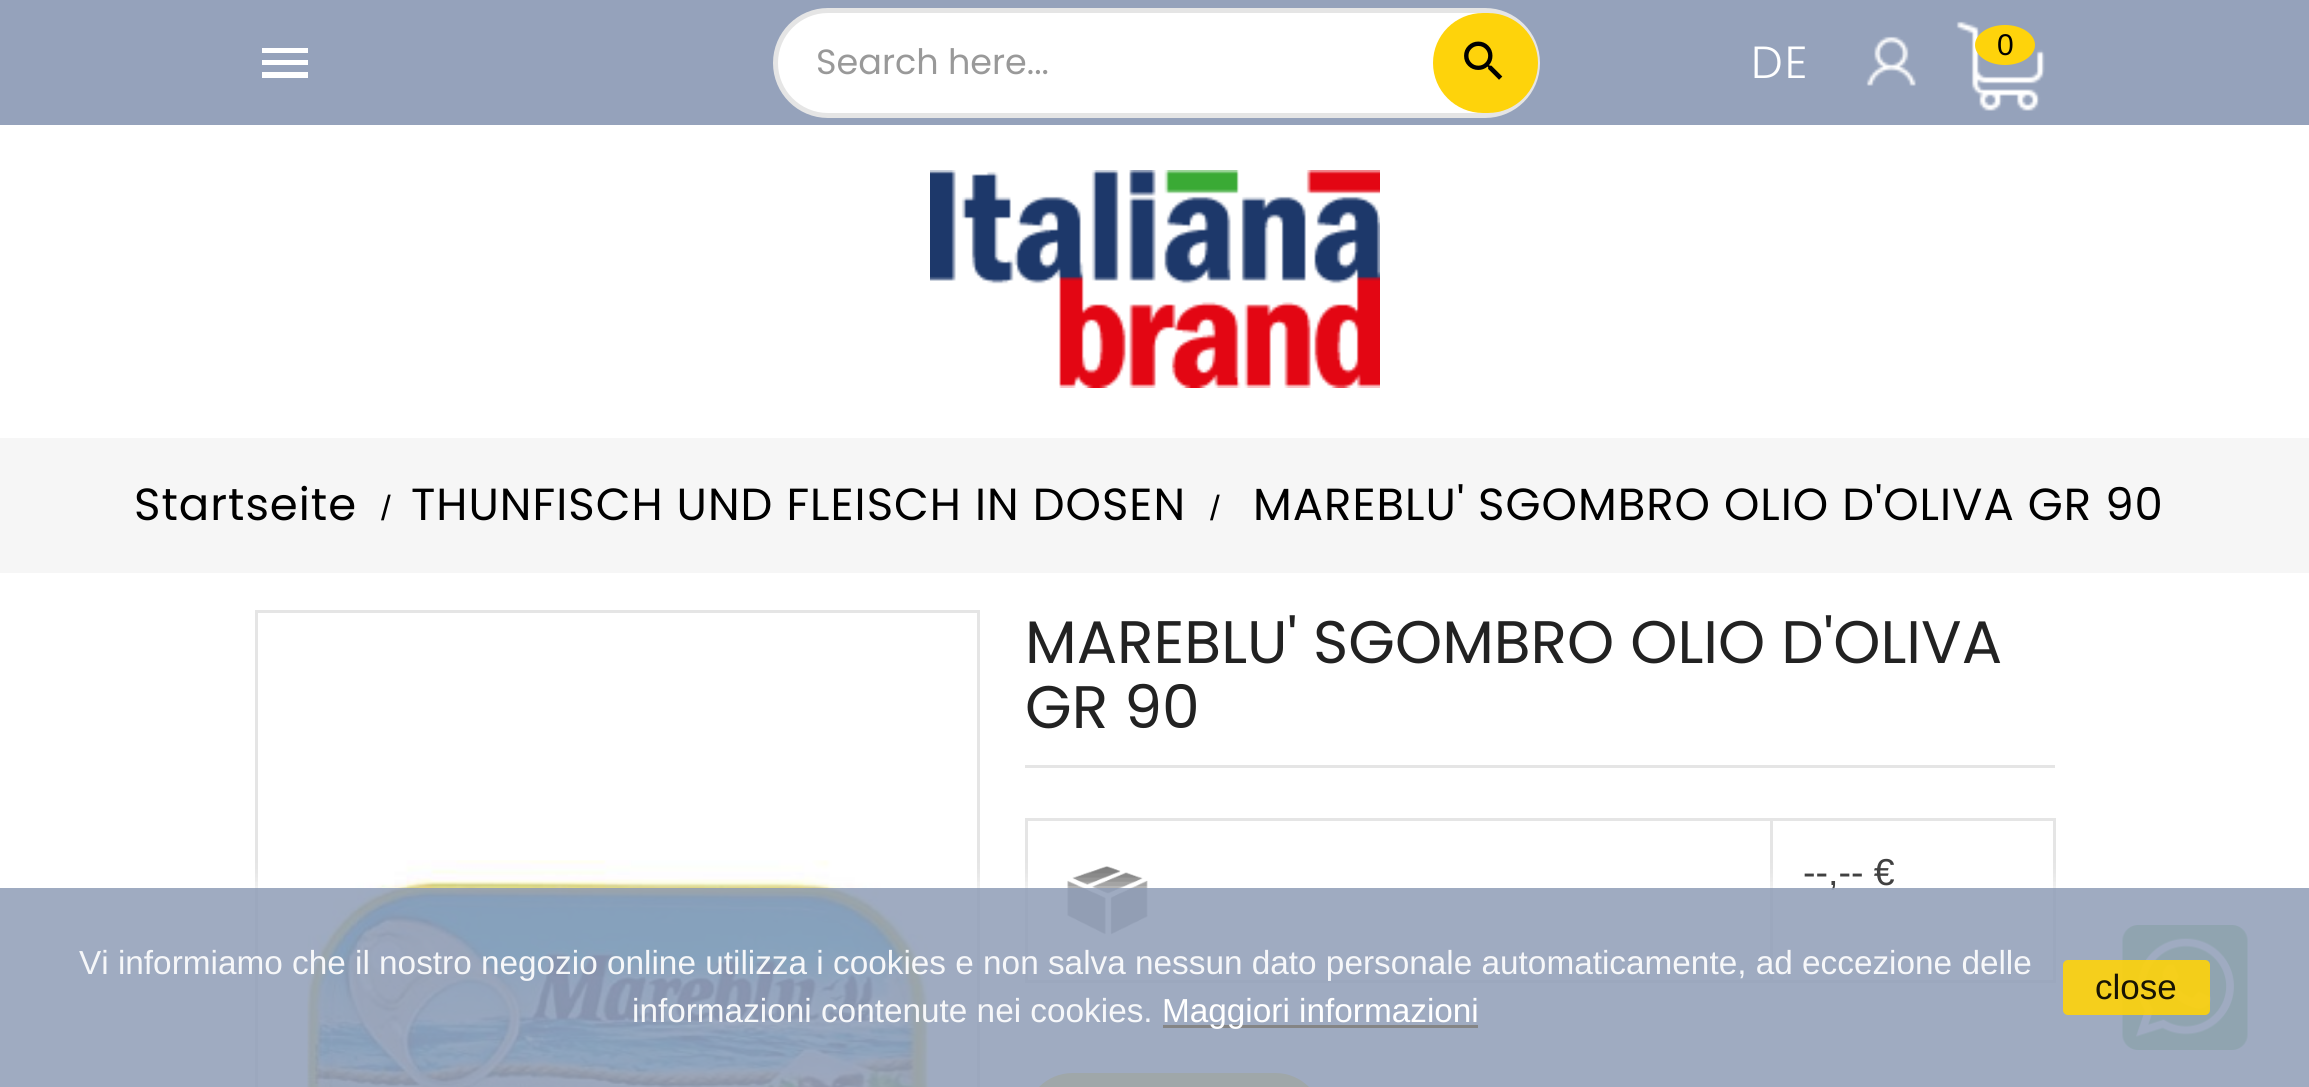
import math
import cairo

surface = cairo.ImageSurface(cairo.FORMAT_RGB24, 2309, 1087)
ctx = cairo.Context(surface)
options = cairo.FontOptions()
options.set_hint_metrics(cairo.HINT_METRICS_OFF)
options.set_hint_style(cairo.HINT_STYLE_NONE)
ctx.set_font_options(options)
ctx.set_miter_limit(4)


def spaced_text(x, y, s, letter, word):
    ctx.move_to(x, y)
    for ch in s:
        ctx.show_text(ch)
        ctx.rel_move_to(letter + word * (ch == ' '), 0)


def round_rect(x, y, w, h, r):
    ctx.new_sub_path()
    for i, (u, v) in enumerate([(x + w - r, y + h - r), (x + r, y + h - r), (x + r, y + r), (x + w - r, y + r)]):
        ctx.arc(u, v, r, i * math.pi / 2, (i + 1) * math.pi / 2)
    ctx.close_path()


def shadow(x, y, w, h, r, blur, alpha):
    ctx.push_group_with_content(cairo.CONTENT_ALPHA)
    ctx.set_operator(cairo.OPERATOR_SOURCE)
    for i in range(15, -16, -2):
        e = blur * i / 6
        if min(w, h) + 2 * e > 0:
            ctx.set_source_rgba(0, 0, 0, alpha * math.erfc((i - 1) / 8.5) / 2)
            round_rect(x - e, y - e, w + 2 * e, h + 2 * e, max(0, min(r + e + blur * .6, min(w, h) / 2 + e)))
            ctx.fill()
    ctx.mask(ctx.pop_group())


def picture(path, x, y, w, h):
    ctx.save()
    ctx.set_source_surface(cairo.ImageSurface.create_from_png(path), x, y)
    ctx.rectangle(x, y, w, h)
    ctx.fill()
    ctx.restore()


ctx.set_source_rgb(1, 1, 1)
ctx.paint()
ctx.set_source_rgb(0.584, 0.635, 0.733)
ctx.rectangle(0, 0, 2309, 125)
ctx.fill()
ctx.set_source_rgb(1, 1, 1)
ctx.new_path()
ctx.move_to(262, 48)
ctx.line_to(308, 48)
ctx.line_to(308, 53)
ctx.line_to(262, 53)
ctx.close_path()
ctx.move_to(262, 65)
ctx.line_to(262, 60)
ctx.line_to(308, 60)
ctx.line_to(308, 65)
ctx.close_path()
ctx.move_to(262, 78)
ctx.line_to(262, 72)
ctx.line_to(308, 72)
ctx.line_to(308, 78)
ctx.close_path()
ctx.fill()
round_rect(775.5, 10.5, 762, 105, 52.5)
ctx.fill_preserve()
ctx.set_source_rgb(0.898, 0.898, 0.898)
ctx.set_line_width(5)
ctx.stroke()
ctx.select_font_face("Poppins")
ctx.set_font_size(35)
ctx.set_source_rgb(0.6, 0.6, 0.6)
ctx.move_to(816, 74)
ctx.show_text("Search here...")
ctx.set_source_rgb(0.996, 0.827, 0.043)
round_rect(1433, 13, 105, 100, 50)
ctx.fill()
picture("img1.png", 1464, 41, 39, 39)
ctx.select_font_face("Poppins Light")
ctx.set_font_size(45)
ctx.set_source_rgb(1, 1, 1)
spaced_text(1751, 78, "DE", 2, 0)
picture("img2.png", 1866, 36, 50, 50)
picture("img3.png", 1956, 21, 89, 90)
ctx.set_source_rgb(0.996, 0.827, 0.043)
ctx.new_path()
ctx.move_to(2005, 25)
ctx.curve_to(2021.5, 25, 2035, 34, 2035, 45)
ctx.curve_to(2035, 56, 2021.5, 65, 2005, 65)
ctx.curve_to(1988.5, 65, 1975, 56, 1975, 45)
ctx.curve_to(1975, 34, 1988.5, 25, 2005, 25)
ctx.close_path()
ctx.fill()
ctx.select_font_face("Liberation Sans")
ctx.set_font_size(30)
ctx.set_source_rgb(0, 0, 0)
ctx.move_to(1997, 55)
ctx.show_text("0")
picture("img4.png", 2122, 925, 126, 125)
ctx.rectangle(256.5, 611.5, 722, 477)
ctx.set_source_rgb(0.898, 0.898, 0.898)
ctx.set_line_width(3)
ctx.stroke()
picture("img6.png", 306, 860, 623, 227)
ctx.rectangle(1025, 818, 1030, 3)
ctx.fill()
ctx.rectangle(2053, 818, 3, 165)
ctx.fill()
ctx.rectangle(1025, 980, 1030, 3)
ctx.fill()
ctx.rectangle(1025, 818, 3, 165)
ctx.fill()
picture("img7.png", 1067, 866, 81, 69)
ctx.rectangle(1770, 818, 3, 165)
ctx.fill()
ctx.set_source_rgb(0.996, 0.827, 0.043)
ctx.new_path()
ctx.move_to(1072.5, 1073)
ctx.line_to(1275.5, 1073)
ctx.curve_to(1301.5, 1073, 1323, 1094.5, 1323, 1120.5)
ctx.line_to(1323, 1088)
ctx.line_to(1025, 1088)
ctx.line_to(1025, 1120.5)
ctx.curve_to(1025, 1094.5, 1046.5, 1073, 1072.5, 1073)
ctx.close_path()
ctx.fill()
ctx.save()
ctx.rectangle(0, 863, 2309, 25)
ctx.clip()
ctx.set_source_rgb(1, 1, 1)
shadow(0, 888, 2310, 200, 0, 12.5, 0.9)
ctx.restore()
ctx.set_font_size(37.5)
ctx.set_source_rgb(0.255, 0.255, 0.255)
ctx.move_to(1803, 885)
ctx.show_text("--,-- €")
ctx.set_source_rgba(0.584, 0.635, 0.733, 0.9)
ctx.rectangle(0, 888, 2309, 199)
ctx.fill()
ctx.set_font_size(33.33)
ctx.set_source_rgb(0.961, 0.965, 0.976)
ctx.move_to(79, 974)
ctx.show_text("Vi informiamo che il nostro negozio online utilizza i cookies e non salva nessun dato personale automaticamente, ad eccezione delle")
ctx.move_to(632, 1022)
ctx.show_text("informazioni contenute nei cookies.")
ctx.set_source_rgb(0.522, 0.522, 0.522)
ctx.rectangle(1163, 1025, 315, 3)
ctx.fill()
ctx.set_source_rgb(1, 1, 1)
ctx.move_to(1162, 1022)
ctx.show_text("Maggiori informazioni")
ctx.set_source_rgba(0.996, 0.827, 0.043, 0.9)
round_rect(2063, 960, 147, 55, 5)
ctx.fill()
ctx.set_font_size(35)
ctx.set_source_rgb(0.094, 0.082, 0.012)
ctx.move_to(2095, 999)
ctx.show_text("close")
picture("img5.png", 930, 170, 450, 218)
ctx.set_source_rgb(0.961, 0.961, 0.961)
ctx.rectangle(0, 438, 2309, 135)
ctx.fill()
ctx.select_font_face("Poppins")
ctx.set_font_size(45)
ctx.set_source_rgb(0, 0, 0)
spaced_text(134, 520, "Startseite", 1, 0)
ctx.select_font_face("Liberation Sans")
ctx.set_font_size(35)
ctx.move_to(381, 520)
ctx.show_text("/")
ctx.select_font_face("Poppins")
ctx.set_font_size(45)
spaced_text(411, 520, "THUNFISCH UND FLEISCH IN DOSEN", 1, 0)
ctx.select_font_face("Liberation Sans")
ctx.set_font_size(35)
ctx.move_to(1210, 520)
ctx.show_text("/")
ctx.select_font_face("Poppins")
ctx.set_font_size(45)
spaced_text(1253, 520, "MAREBLU' SGOMBRO OLIO D'OLIVA GR 90", 1, 0)
ctx.set_source_rgb(0.898, 0.898, 0.898)
ctx.rectangle(1025, 765, 1030, 3)
ctx.fill()
ctx.set_font_size(60)
ctx.set_source_rgb(0.133, 0.133, 0.133)
ctx.move_to(1025, 663)
ctx.show_text("MAREBLU' SGOMBRO OLIO D'OLIVA")
ctx.move_to(1025, 728)
ctx.show_text("GR 90")
surface.write_to_png("page.png")
